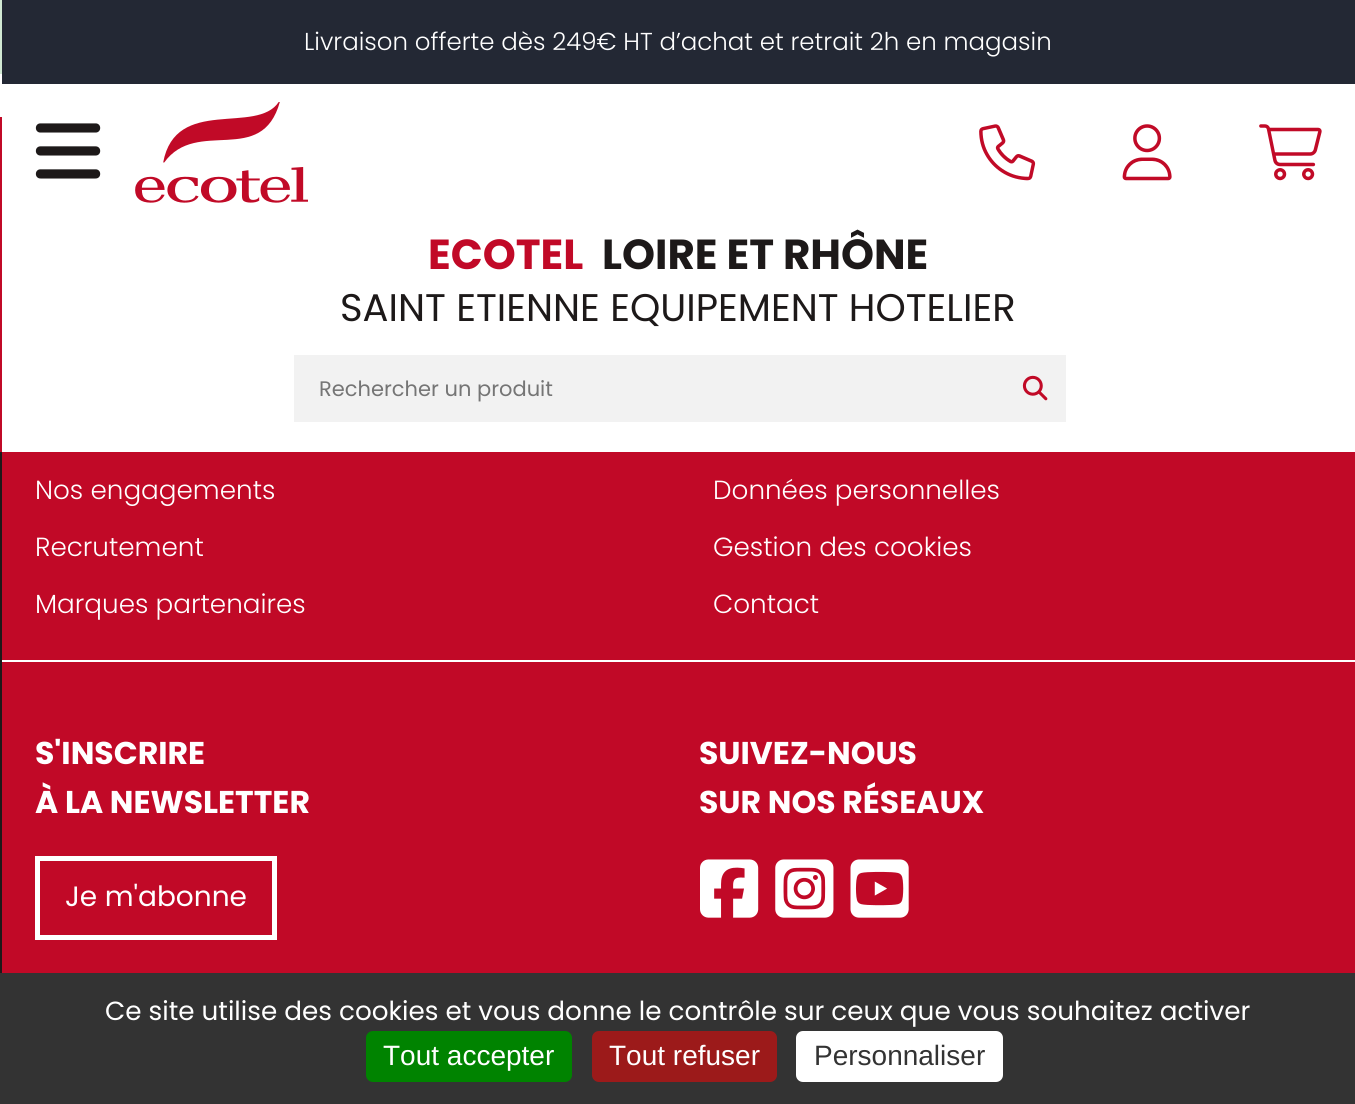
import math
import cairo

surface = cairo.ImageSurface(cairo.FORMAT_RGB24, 1355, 1104)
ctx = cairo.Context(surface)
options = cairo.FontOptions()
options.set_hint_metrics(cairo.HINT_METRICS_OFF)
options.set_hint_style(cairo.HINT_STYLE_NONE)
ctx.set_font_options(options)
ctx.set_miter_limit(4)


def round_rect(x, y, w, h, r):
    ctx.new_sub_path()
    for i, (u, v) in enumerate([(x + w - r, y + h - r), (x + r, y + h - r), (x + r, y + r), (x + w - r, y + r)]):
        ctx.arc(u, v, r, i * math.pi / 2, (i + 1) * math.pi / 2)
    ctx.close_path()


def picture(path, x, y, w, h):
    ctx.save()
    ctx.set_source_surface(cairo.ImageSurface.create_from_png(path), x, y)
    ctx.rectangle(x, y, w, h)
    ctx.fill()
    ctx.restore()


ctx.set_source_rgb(0.757, 0.039, 0.153)
ctx.paint()
ctx.set_source_rgb(1, 1, 1)
ctx.rectangle(2, 84, 1353, 368)
ctx.fill()
ctx.set_source_rgb(0.137, 0.157, 0.204)
ctx.rectangle(2, 0, 1353, 84)
ctx.fill()
ctx.select_font_face("Poppins Light")
ctx.set_font_size(24.5)
ctx.set_source_rgb(1, 1, 1)
ctx.move_to(304, 50)
ctx.show_text("Livraison offerte dès 249€ HT d’achat et retrait 2h en magasin")
picture("img1.png", 35, 123, 66, 56)
picture("img2.png", 135, 102, 173, 101)
picture("img3.png", 979, 124, 57, 57)
picture("img4.png", 1122, 124, 50, 57)
picture("img5.png", 1259, 124, 63, 57)
ctx.select_font_face("Poppins", cairo.FONT_SLANT_NORMAL, cairo.FONT_WEIGHT_BOLD)
ctx.set_font_size(42)
ctx.set_source_rgb(0.757, 0.039, 0.153)
ctx.move_to(428, 269)
ctx.show_text("ECOTEL")
ctx.set_source_rgb(0.114, 0.098, 0.098)
ctx.move_to(602, 269)
ctx.show_text("LOIRE ET RHÔNE")
ctx.select_font_face("Poppins")
ctx.set_font_size(38.5)
ctx.move_to(340, 321)
ctx.show_text("SAINT ETIENNE EQUIPEMENT HOTELIER")
ctx.set_source_rgb(0.949, 0.949, 0.949)
ctx.rectangle(294, 355, 772, 67)
ctx.fill()
ctx.set_font_size(21)
ctx.set_source_rgb(0.459, 0.459, 0.459)
ctx.move_to(319, 396)
ctx.show_text("Rechercher un produit")
picture("img6.png", 1022, 375, 26, 26)
ctx.set_source_rgb(1, 1, 1)
ctx.rectangle(0, 660, 1355, 2)
ctx.fill()
ctx.set_source_rgb(0.114, 0.098, 0.098)
ctx.rectangle(0, 452, 2, 521)
ctx.fill()
ctx.set_source_rgb(0.82, 0.914, 0.827)
ctx.rectangle(0, 0, 2, 74)
ctx.fill()
ctx.set_source_rgb(1, 1, 1)
ctx.rectangle(0, 74, 2, 43)
ctx.fill()
ctx.select_font_face("Poppins Light")
ctx.set_font_size(26.25)
ctx.move_to(35, 499)
ctx.show_text("Nos engagements")
ctx.move_to(35, 556)
ctx.show_text("Recrutement")
ctx.move_to(35, 613)
ctx.show_text("Marques partenaires")
ctx.move_to(713, 499)
ctx.show_text("Données personnelles")
ctx.move_to(713, 556)
ctx.show_text("Gestion des cookies")
ctx.move_to(713, 613)
ctx.show_text("Contact")
ctx.select_font_face("Poppins", cairo.FONT_SLANT_NORMAL, cairo.FONT_WEIGHT_BOLD)
ctx.set_font_size(31.5)
ctx.move_to(35, 764)
ctx.show_text("S'INSCRIRE")
ctx.move_to(35, 813)
ctx.show_text("À LA NEWSLETTER")
ctx.rectangle(37.5, 858.5, 237, 79)
ctx.set_line_width(5)
ctx.stroke()
ctx.select_font_face("Poppins")
ctx.set_font_size(28)
ctx.move_to(65, 906)
ctx.show_text("Je m'abonne")
ctx.select_font_face("Poppins", cairo.FONT_SLANT_NORMAL, cairo.FONT_WEIGHT_BOLD)
ctx.set_font_size(31.5)
ctx.move_to(699, 764)
ctx.show_text("SUIVEZ-NOUS")
ctx.move_to(699, 813)
ctx.show_text("SUR NOS RÉSEAUX")
picture("img7.png", 700, 859, 59, 59)
picture("img8.png", 775, 859, 59, 59)
picture("img9.png", 850, 859, 59, 59)
ctx.set_source_rgb(0.2, 0.2, 0.2)
ctx.rectangle(0, 973, 1355, 131)
ctx.fill()
ctx.select_font_face("Poppins")
ctx.set_font_size(26.25)
ctx.set_source_rgb(1, 1, 1)
ctx.move_to(105, 1020)
ctx.show_text("Ce site utilise des cookies et vous donne le contrôle sur ceux que vous souhaitez activer")
ctx.set_source_rgb(0, 0.514, 0)
round_rect(366, 1031, 206, 51, 7)
ctx.fill()
ctx.select_font_face("Liberation Sans")
ctx.set_font_size(28)
ctx.set_source_rgb(1, 1, 1)
ctx.move_to(383, 1065)
ctx.show_text("Tout accepter")
ctx.set_source_rgb(0.612, 0.102, 0.102)
round_rect(592, 1031, 185, 51, 7)
ctx.fill()
ctx.set_source_rgb(1, 1, 1)
ctx.move_to(609, 1065)
ctx.show_text("Tout refuser")
round_rect(796, 1031, 207, 51, 7)
ctx.fill()
ctx.set_source_rgb(0.2, 0.2, 0.2)
ctx.move_to(814, 1065)
ctx.show_text("Personnaliser")
surface.write_to_png("page.png")
